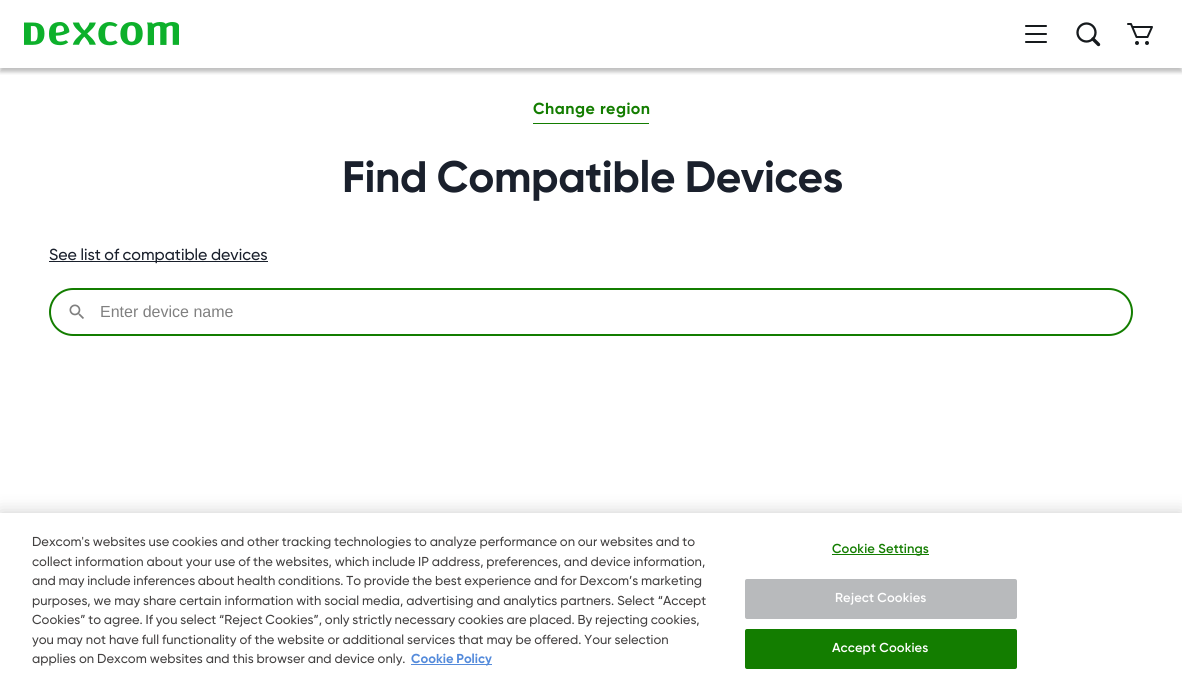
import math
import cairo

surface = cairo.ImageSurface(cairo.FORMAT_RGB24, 1182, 680)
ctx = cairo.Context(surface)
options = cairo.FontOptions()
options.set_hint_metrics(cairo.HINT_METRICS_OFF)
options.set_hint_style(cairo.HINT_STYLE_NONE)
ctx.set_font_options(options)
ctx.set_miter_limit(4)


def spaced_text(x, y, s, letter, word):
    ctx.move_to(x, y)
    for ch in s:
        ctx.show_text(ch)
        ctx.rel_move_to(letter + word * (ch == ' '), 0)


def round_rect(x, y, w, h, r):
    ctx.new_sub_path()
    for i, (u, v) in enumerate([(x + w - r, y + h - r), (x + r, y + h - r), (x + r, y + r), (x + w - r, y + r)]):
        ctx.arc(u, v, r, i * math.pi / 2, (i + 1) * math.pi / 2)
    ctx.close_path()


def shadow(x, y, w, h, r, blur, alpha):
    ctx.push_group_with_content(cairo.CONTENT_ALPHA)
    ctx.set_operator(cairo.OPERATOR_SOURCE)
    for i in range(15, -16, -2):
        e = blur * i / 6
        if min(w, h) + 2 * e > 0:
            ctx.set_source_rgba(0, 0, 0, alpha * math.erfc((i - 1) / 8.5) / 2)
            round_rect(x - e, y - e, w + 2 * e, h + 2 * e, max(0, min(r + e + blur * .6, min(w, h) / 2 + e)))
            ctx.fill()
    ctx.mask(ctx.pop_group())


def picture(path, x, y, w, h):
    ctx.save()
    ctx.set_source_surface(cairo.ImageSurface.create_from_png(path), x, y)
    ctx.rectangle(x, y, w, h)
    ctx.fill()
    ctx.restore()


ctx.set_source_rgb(1, 1, 1)
ctx.paint()
ctx.save()
ctx.rectangle(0, 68, 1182, 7)
ctx.clip()
ctx.set_source_rgb(0, 0, 0)
shadow(0, 4, 1182, 68, 0, 2, 0.25)
ctx.restore()
picture("img1.png", 24, 22, 155, 24)
picture("img2.png", 1025, 25, 22, 18)
ctx.arc(1086.5, 32.5, 9, 0, 2 * math.pi)
ctx.set_source_rgb(0.086, 0.102, 0.114)
ctx.set_line_width(2.3)
ctx.stroke()
ctx.new_path()
ctx.move_to(1093, 39)
ctx.line_to(1098.5, 44.5)
ctx.set_line_width(3.4)
ctx.set_line_cap(cairo.LINE_CAP_ROUND)
ctx.stroke()
ctx.new_path()
ctx.move_to(1128, 24)
ctx.line_to(1131, 24)
ctx.line_to(1136.5, 37)
ctx.line_to(1147.5, 37)
ctx.line_to(1152, 27)
ctx.line_to(1132.5, 27)
ctx.set_line_width(2)
ctx.set_line_join(cairo.LINE_JOIN_ROUND)
ctx.stroke()
ctx.arc(1137, 43, 2, 0, 2 * math.pi)
ctx.fill()
ctx.arc(1147, 43, 2, 0, 2 * math.pi)
ctx.fill()
ctx.set_source_rgb(0.075, 0.49, 0)
ctx.rectangle(533, 123, 116, 1)
ctx.fill()
ctx.select_font_face("Gilroy", cairo.FONT_SLANT_NORMAL, cairo.FONT_WEIGHT_BOLD)
ctx.set_font_size(16)
spaced_text(533, 114, "Change region", 0.5, 0)
ctx.set_font_size(44)
ctx.set_source_rgb(0.102, 0.125, 0.173)
spaced_text(342, 192, "Find Compatible Devices", -0.4, -1)
ctx.rectangle(49, 261, 219, 1)
ctx.fill()
ctx.select_font_face("Gilroy Medium")
ctx.set_font_size(16)
spaced_text(49, 260, "See list of compatible devices", 0, -0.5)
round_rect(50, 289, 1082, 46, 23)
ctx.set_source_rgb(0.075, 0.49, 0)
ctx.set_line_cap(cairo.LINE_CAP_BUTT)
ctx.set_line_join(cairo.LINE_JOIN_MITER)
ctx.stroke()
picture("img3.png", 69, 304, 15, 15)
ctx.select_font_face("Liberation Sans")
ctx.set_source_rgb(0.502, 0.502, 0.502)
ctx.move_to(100, 317)
ctx.show_text("Enter device name")
ctx.set_source_rgb(0, 0, 0)
shadow(0, 513, 1182, 167, 0, 9, 0.2)
ctx.set_source_rgb(1, 1, 1)
ctx.rectangle(0, 513, 1182, 167)
ctx.fill()
ctx.select_font_face("Gilroy Medium")
ctx.set_font_size(13)
ctx.set_source_rgb(0.263, 0.255, 0.255)
spaced_text(32, 546, "Dexcom's websites use cookies and other tracking technologies to analyze performance on our websites and to", 0, -0.5)
spaced_text(32, 566, "collect information about your use of the websites, which include IP address, preferences, and device information,", 0, -0.5)
spaced_text(32, 585, "and may include inferences about health conditions. To provide the best experience and for Dexcom’s marketing", 0, -0.5)
spaced_text(32, 605, "purposes, we may share certain information with social media, advertising and analytics partners. Select “Accept", 0, -0.3)
spaced_text(32, 624, "Cookies” to agree. If you select “Reject Cookies”, only strictly necessary cookies are placed. By rejecting cookies,", 0, -0.5)
spaced_text(32, 644, "you may not have full functionality of the website or additional services that may be offered. Your selection", 0, -0.25)
spaced_text(32, 663, "applies on Dexcom websites and this browser and device only.", 0, -0.25)
ctx.set_source_rgb(0.333, 0.545, 0.859)
ctx.rectangle(411, 664, 81, 1)
ctx.fill()
ctx.select_font_face("Gilroy", cairo.FONT_SLANT_NORMAL, cairo.FONT_WEIGHT_BOLD)
spaced_text(411, 663, "Cookie Policy", 0, -0.5)
ctx.set_source_rgb(0.075, 0.49, 0)
ctx.rectangle(832, 554, 97, 1)
ctx.fill()
ctx.select_font_face("Gilroy SemiBold")
spaced_text(832, 553, "Cookie Settings", 0.1, 0)
ctx.set_source_rgb(0.722, 0.729, 0.737)
round_rect(745, 579, 272, 40, 2)
ctx.fill()
ctx.set_source_rgb(1, 1, 1)
spaced_text(835, 602, "Reject Cookies", 0.1, 0)
ctx.set_source_rgb(0.075, 0.49, 0)
round_rect(745, 629, 272, 40, 2)
ctx.fill()
ctx.set_source_rgb(1, 1, 1)
spaced_text(832, 652, "Accept Cookies", 0.1, 0)
surface.write_to_png("page.png")
